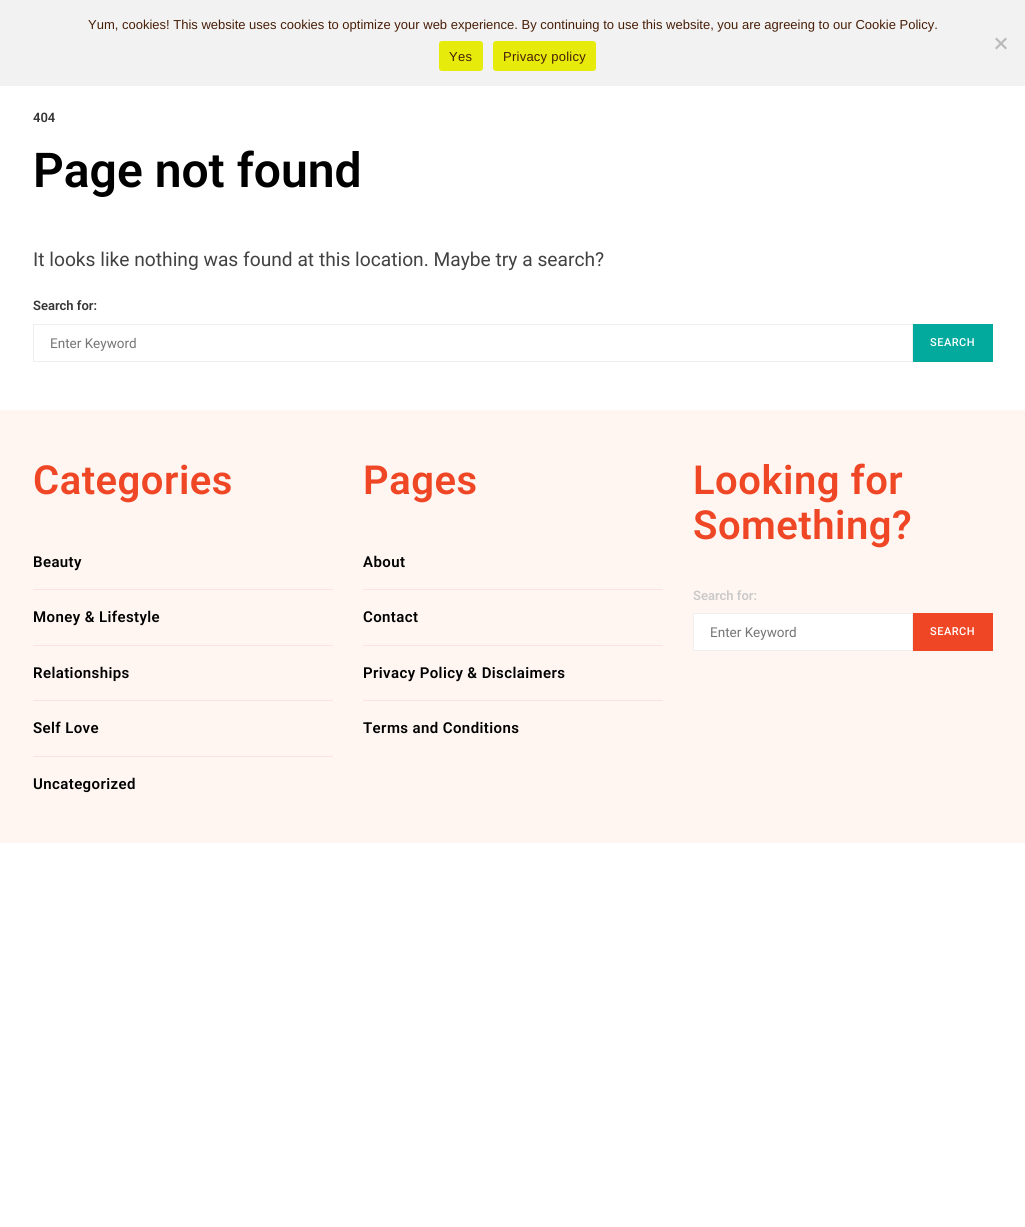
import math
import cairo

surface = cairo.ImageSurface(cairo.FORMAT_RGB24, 1025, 1227)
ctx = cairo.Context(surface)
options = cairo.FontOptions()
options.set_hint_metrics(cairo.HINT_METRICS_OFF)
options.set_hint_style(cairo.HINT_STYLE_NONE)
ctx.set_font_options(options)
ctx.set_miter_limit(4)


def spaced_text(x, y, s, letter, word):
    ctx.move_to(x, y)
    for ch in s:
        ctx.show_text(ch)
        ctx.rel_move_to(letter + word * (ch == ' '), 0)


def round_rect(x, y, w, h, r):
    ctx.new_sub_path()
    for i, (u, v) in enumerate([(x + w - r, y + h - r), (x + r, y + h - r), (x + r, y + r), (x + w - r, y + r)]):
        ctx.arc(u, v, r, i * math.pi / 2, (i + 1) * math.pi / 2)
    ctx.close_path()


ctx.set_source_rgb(1, 1, 1)
ctx.paint()
ctx.set_source_rgb(0.949, 0.949, 0.949)
ctx.rectangle(0, 0, 1025, 86)
ctx.fill()
ctx.select_font_face("Liberation Sans")
ctx.set_font_size(13)
ctx.set_source_rgb(0.278, 0.118, 0.027)
ctx.move_to(88, 29)
ctx.show_text("Yum, cookies! This website uses cookies to optimize your web experience. By continuing to use this website, you are agreeing to our Cookie Policy.")
ctx.set_source_rgb(0.725, 0.725, 0.725)
ctx.new_path()
ctx.move_to(1005.5, 37.5)
ctx.line_to(1007, 39)
ctx.line_to(996.5, 49.5)
ctx.line_to(995, 48)
ctx.close_path()
ctx.fill()
ctx.new_path()
ctx.move_to(995, 39)
ctx.line_to(996.5, 37.5)
ctx.line_to(1007, 48)
ctx.line_to(1005.5, 49.5)
ctx.close_path()
ctx.fill()
ctx.set_source_rgb(0.906, 0.918, 0.043)
round_rect(439, 41, 44, 30, 3)
ctx.fill()
ctx.set_source_rgb(0.278, 0.118, 0.027)
spaced_text(449, 61, "Yes", 0.25, 0)
ctx.set_source_rgb(0.906, 0.918, 0.043)
round_rect(493, 41, 103, 30, 3)
ctx.fill()
ctx.set_source_rgb(0.278, 0.118, 0.027)
spaced_text(503, 61, "Privacy policy", 0.25, 0)
ctx.select_font_face("Roboto SemiBold")
ctx.set_source_rgb(0.208, 0.208, 0.208)
ctx.move_to(33, 122)
ctx.show_text("404")
ctx.set_font_size(48)
ctx.set_source_rgb(0, 0, 0)
ctx.move_to(33, 187)
ctx.show_text("Page not found")
ctx.select_font_face("Roboto")
ctx.set_font_size(19.2)
ctx.set_source_rgb(0.259, 0.259, 0.259)
ctx.move_to(33, 266)
ctx.show_text("It looks like nothing was found at this location. Maybe try a search?")
ctx.select_font_face("Roboto SemiBold")
ctx.set_font_size(13)
ctx.set_source_rgb(0.208, 0.208, 0.208)
ctx.move_to(33, 310)
ctx.show_text("Search for:")
ctx.rectangle(33.5, 324.5, 879, 37)
ctx.set_source_rgb(0.933, 0.933, 0.933)
ctx.set_line_width(1)
ctx.stroke()
ctx.select_font_face("Roboto")
ctx.set_font_size(13.5)
ctx.set_source_rgb(0.459, 0.459, 0.459)
ctx.move_to(50, 348)
ctx.show_text("Enter Keyword")
ctx.set_source_rgb(0.008, 0.663, 0.616)
ctx.rectangle(913, 324, 80, 38)
ctx.fill()
ctx.select_font_face("Roboto Medium")
ctx.set_font_size(11)
ctx.set_source_rgb(1, 1, 1)
spaced_text(930, 346, "SEARCH", 0.5, 0)
ctx.set_source_rgb(1, 0.961, 0.949)
ctx.rectangle(0, 410, 1025, 433)
ctx.fill()
ctx.select_font_face("Roboto SemiBold")
ctx.set_font_size(40)
ctx.set_source_rgb(0.937, 0.278, 0.149)
spaced_text(33, 494, "Categories", 0.5, 0)
ctx.set_font_size(15)
ctx.set_source_rgb(0, 0, 0)
spaced_text(33, 567, "Beauty", 0.4, 0)
ctx.set_source_rgb(0.992, 0.886, 0.867)
ctx.rectangle(33, 589, 300, 1)
ctx.fill()
ctx.set_source_rgb(0, 0, 0)
spaced_text(33, 622, "Money & Lifestyle", 0.4, 0)
ctx.set_source_rgb(0.992, 0.886, 0.867)
ctx.rectangle(33, 645, 300, 1)
ctx.fill()
ctx.set_source_rgb(0, 0, 0)
spaced_text(33, 678, "Relationships", 0.4, 0)
ctx.set_source_rgb(0.992, 0.886, 0.867)
ctx.rectangle(33, 700, 300, 1)
ctx.fill()
ctx.set_source_rgb(0, 0, 0)
spaced_text(33, 733, "Self Love", 0.4, 0)
ctx.set_source_rgb(0.992, 0.886, 0.867)
ctx.rectangle(33, 756, 300, 1)
ctx.fill()
ctx.set_source_rgb(0, 0, 0)
spaced_text(33, 789, "Uncategorized", 0.4, 0)
ctx.set_font_size(40)
ctx.set_source_rgb(0.937, 0.278, 0.149)
spaced_text(363, 494, "Pages", 0.5, 0)
ctx.set_font_size(15)
ctx.set_source_rgb(0, 0, 0)
spaced_text(363, 567, "About", 0.4, 0)
ctx.set_source_rgb(0.992, 0.886, 0.867)
ctx.rectangle(363, 589, 300, 1)
ctx.fill()
ctx.set_source_rgb(0, 0, 0)
spaced_text(363, 622, "Contact", 0.4, 0)
ctx.set_source_rgb(0.992, 0.886, 0.867)
ctx.rectangle(363, 645, 300, 1)
ctx.fill()
ctx.set_source_rgb(0, 0, 0)
spaced_text(363, 678, "Privacy Policy & Disclaimers", 0.4, 0)
ctx.set_source_rgb(0.992, 0.886, 0.867)
ctx.rectangle(363, 700, 300, 1)
ctx.fill()
ctx.set_source_rgb(0, 0, 0)
spaced_text(363, 733, "Terms and Conditions", 0.4, 0)
ctx.set_font_size(40)
ctx.set_source_rgb(0.937, 0.278, 0.149)
spaced_text(693, 494, "Looking for", 0.5, 0)
spaced_text(693, 539, "Something?", 0.5, 0)
ctx.set_font_size(13)
ctx.set_source_rgb(0.788, 0.788, 0.788)
ctx.move_to(693, 600)
ctx.show_text("Search for:")
ctx.set_source_rgb(1, 1, 1)
ctx.rectangle(693.5, 613.5, 219, 37)
ctx.fill_preserve()
ctx.set_source_rgb(0.933, 0.933, 0.933)
ctx.stroke()
ctx.select_font_face("Roboto")
ctx.set_font_size(13.5)
ctx.set_source_rgb(0.459, 0.459, 0.459)
ctx.move_to(710, 637)
ctx.show_text("Enter Keyword")
ctx.set_source_rgb(0.937, 0.278, 0.149)
ctx.rectangle(913, 613, 80, 38)
ctx.fill()
ctx.select_font_face("Roboto Medium")
ctx.set_font_size(11)
ctx.set_source_rgb(1, 1, 1)
spaced_text(930, 635, "SEARCH", 0.5, 0)
surface.write_to_png("page.png")
